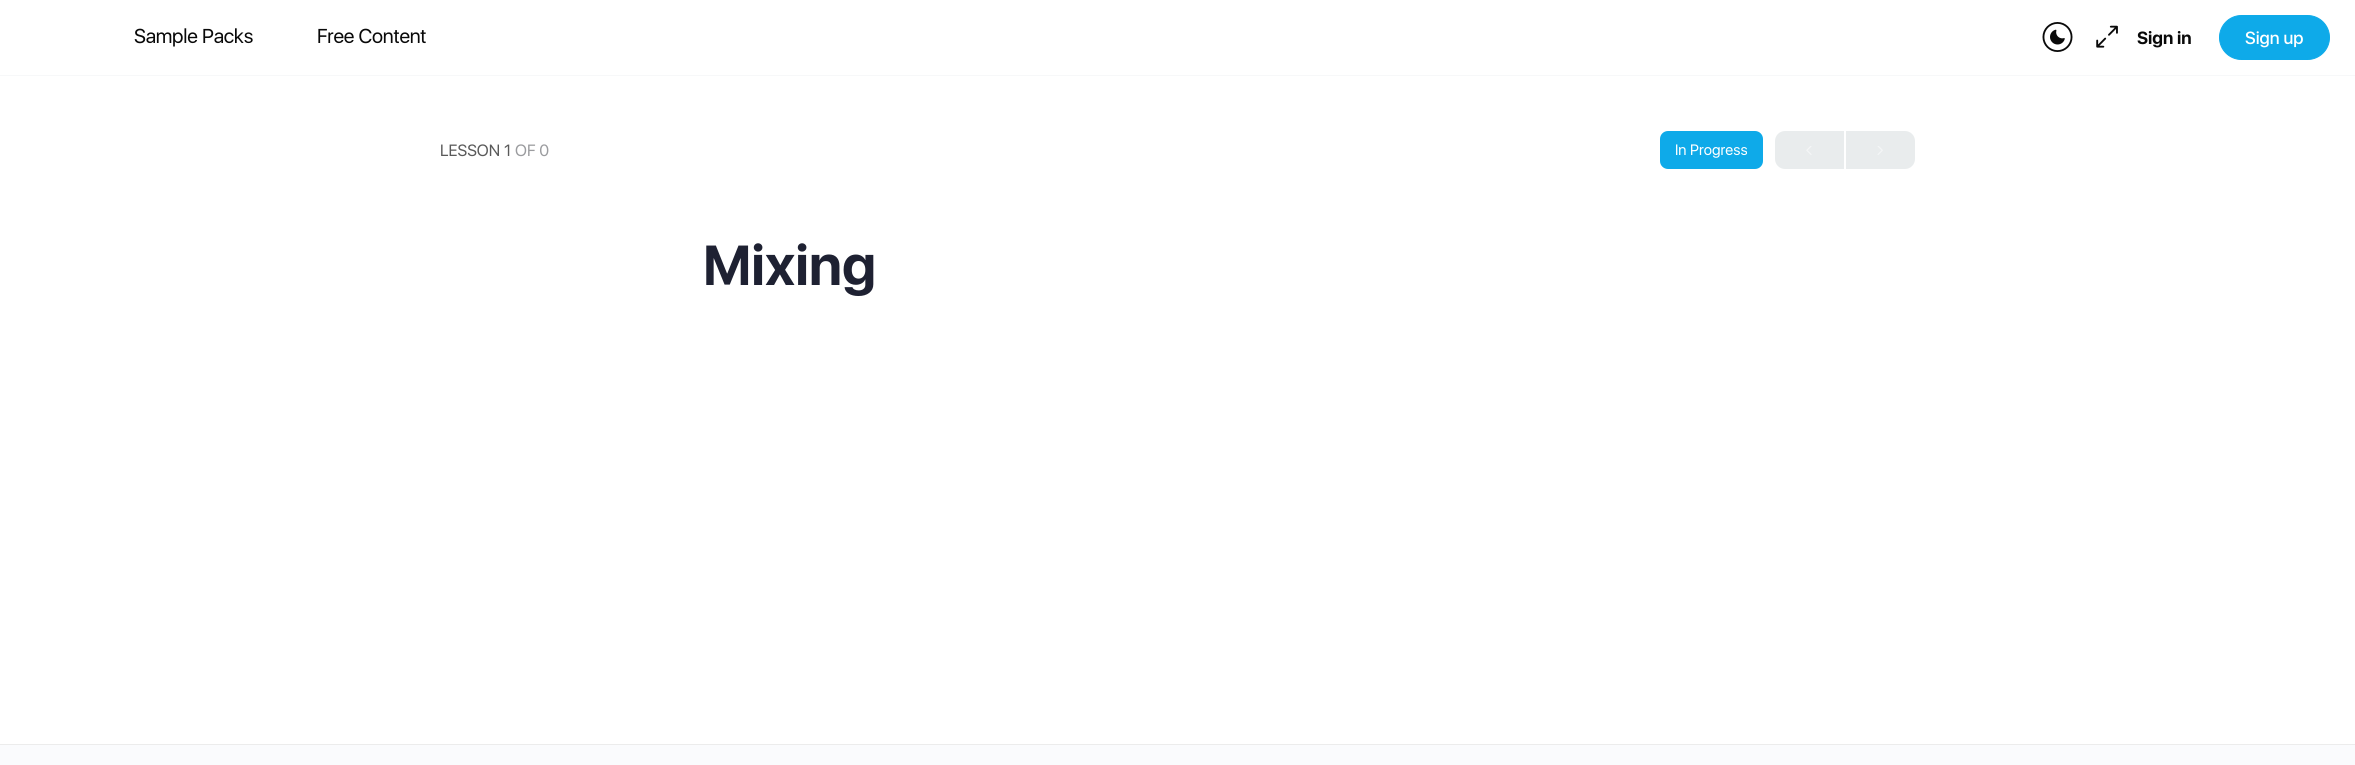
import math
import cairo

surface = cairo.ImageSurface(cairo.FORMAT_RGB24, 2355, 765)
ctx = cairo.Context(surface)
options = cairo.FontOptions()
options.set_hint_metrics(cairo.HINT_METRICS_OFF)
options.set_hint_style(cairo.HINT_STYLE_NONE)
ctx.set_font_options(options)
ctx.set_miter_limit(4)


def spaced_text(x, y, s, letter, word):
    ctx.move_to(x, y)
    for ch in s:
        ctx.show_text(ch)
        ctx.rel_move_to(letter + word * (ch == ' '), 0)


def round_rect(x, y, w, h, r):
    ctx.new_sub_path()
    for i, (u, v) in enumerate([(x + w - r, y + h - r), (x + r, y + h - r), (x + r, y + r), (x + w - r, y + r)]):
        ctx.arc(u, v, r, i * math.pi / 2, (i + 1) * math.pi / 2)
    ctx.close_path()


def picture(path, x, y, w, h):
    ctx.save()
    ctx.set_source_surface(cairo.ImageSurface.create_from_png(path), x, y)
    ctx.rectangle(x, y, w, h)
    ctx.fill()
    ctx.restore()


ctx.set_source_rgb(0.98, 0.984, 0.992)
ctx.paint()
ctx.set_source_rgb(0.965, 0.969, 0.973)
ctx.rectangle(0, 75, 2355, 1)
ctx.fill()
ctx.set_source_rgb(1, 1, 1)
ctx.rectangle(0, 0, 2355, 75)
ctx.fill()
ctx.select_font_face("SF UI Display")
ctx.set_font_size(20)
ctx.set_source_rgb(0.039, 0.039, 0.039)
spaced_text(134, 43, "Sample Packs", -0.25, 0)
spaced_text(317, 43, "Free Content", -0.25, 0)
picture("img1.png", 2042, 22, 31, 30)
picture("img2.png", 2096, 25, 22, 23)
ctx.select_font_face("SF UI Display", cairo.FONT_SLANT_NORMAL, cairo.FONT_WEIGHT_BOLD)
ctx.set_font_size(17.5)
ctx.move_to(2137, 44)
ctx.show_text("Sign in")
ctx.set_source_rgb(0.055, 0.667, 0.914)
round_rect(2219.5, 15.5, 110, 44, 22)
ctx.fill_preserve()
ctx.set_line_width(1)
ctx.stroke()
ctx.select_font_face("SF UI Display Medium")
ctx.set_source_rgb(1, 1, 1)
ctx.move_to(2245, 44)
ctx.show_text("Sign up")
ctx.rectangle(0, 76, 2355, 668)
ctx.fill()
ctx.set_source_rgb(0.925, 0.925, 0.925)
ctx.rectangle(0, 744, 2355, 1)
ctx.fill()
ctx.select_font_face("SF UI Display")
ctx.set_font_size(16.25)
ctx.set_source_rgb(0.353, 0.353, 0.353)
ctx.move_to(440, 156)
ctx.show_text("LESSON 1")
ctx.set_source_rgb(0.608, 0.612, 0.624)
ctx.move_to(515, 156)
ctx.show_text("OF 0")
ctx.set_source_rgb(0.055, 0.667, 0.914)
round_rect(1660, 131, 103, 38, 8)
ctx.fill()
ctx.set_font_size(15)
ctx.set_source_rgb(1, 1, 1)
ctx.move_to(1675, 155)
ctx.show_text("In Progress")
ctx.set_source_rgb(0.914, 0.922, 0.929)
ctx.new_path()
ctx.move_to(1785, 131)
ctx.line_to(1844, 131)
ctx.line_to(1844, 169)
ctx.line_to(1785, 169)
ctx.curve_to(1779.5, 169, 1775, 164.5, 1775, 159)
ctx.line_to(1775, 141)
ctx.curve_to(1775, 135.5, 1779.5, 131, 1785, 131)
ctx.close_path()
ctx.fill()
picture("img3.png", 1806, 146, 6, 9)
ctx.new_path()
ctx.move_to(1846, 131)
ctx.line_to(1905, 131)
ctx.curve_to(1910.5, 131, 1915, 135.5, 1915, 141)
ctx.line_to(1915, 159)
ctx.curve_to(1915, 164.5, 1910.5, 169, 1905, 169)
ctx.line_to(1846, 169)
ctx.close_path()
ctx.fill()
picture("img4.png", 1877, 146, 6, 9)
ctx.select_font_face("SF UI Display", cairo.FONT_SLANT_NORMAL, cairo.FONT_WEIGHT_BOLD)
ctx.set_font_size(56)
ctx.set_source_rgb(0.118, 0.129, 0.196)
ctx.move_to(703, 285)
ctx.show_text("Mixing")
surface.write_to_png("page.png")
